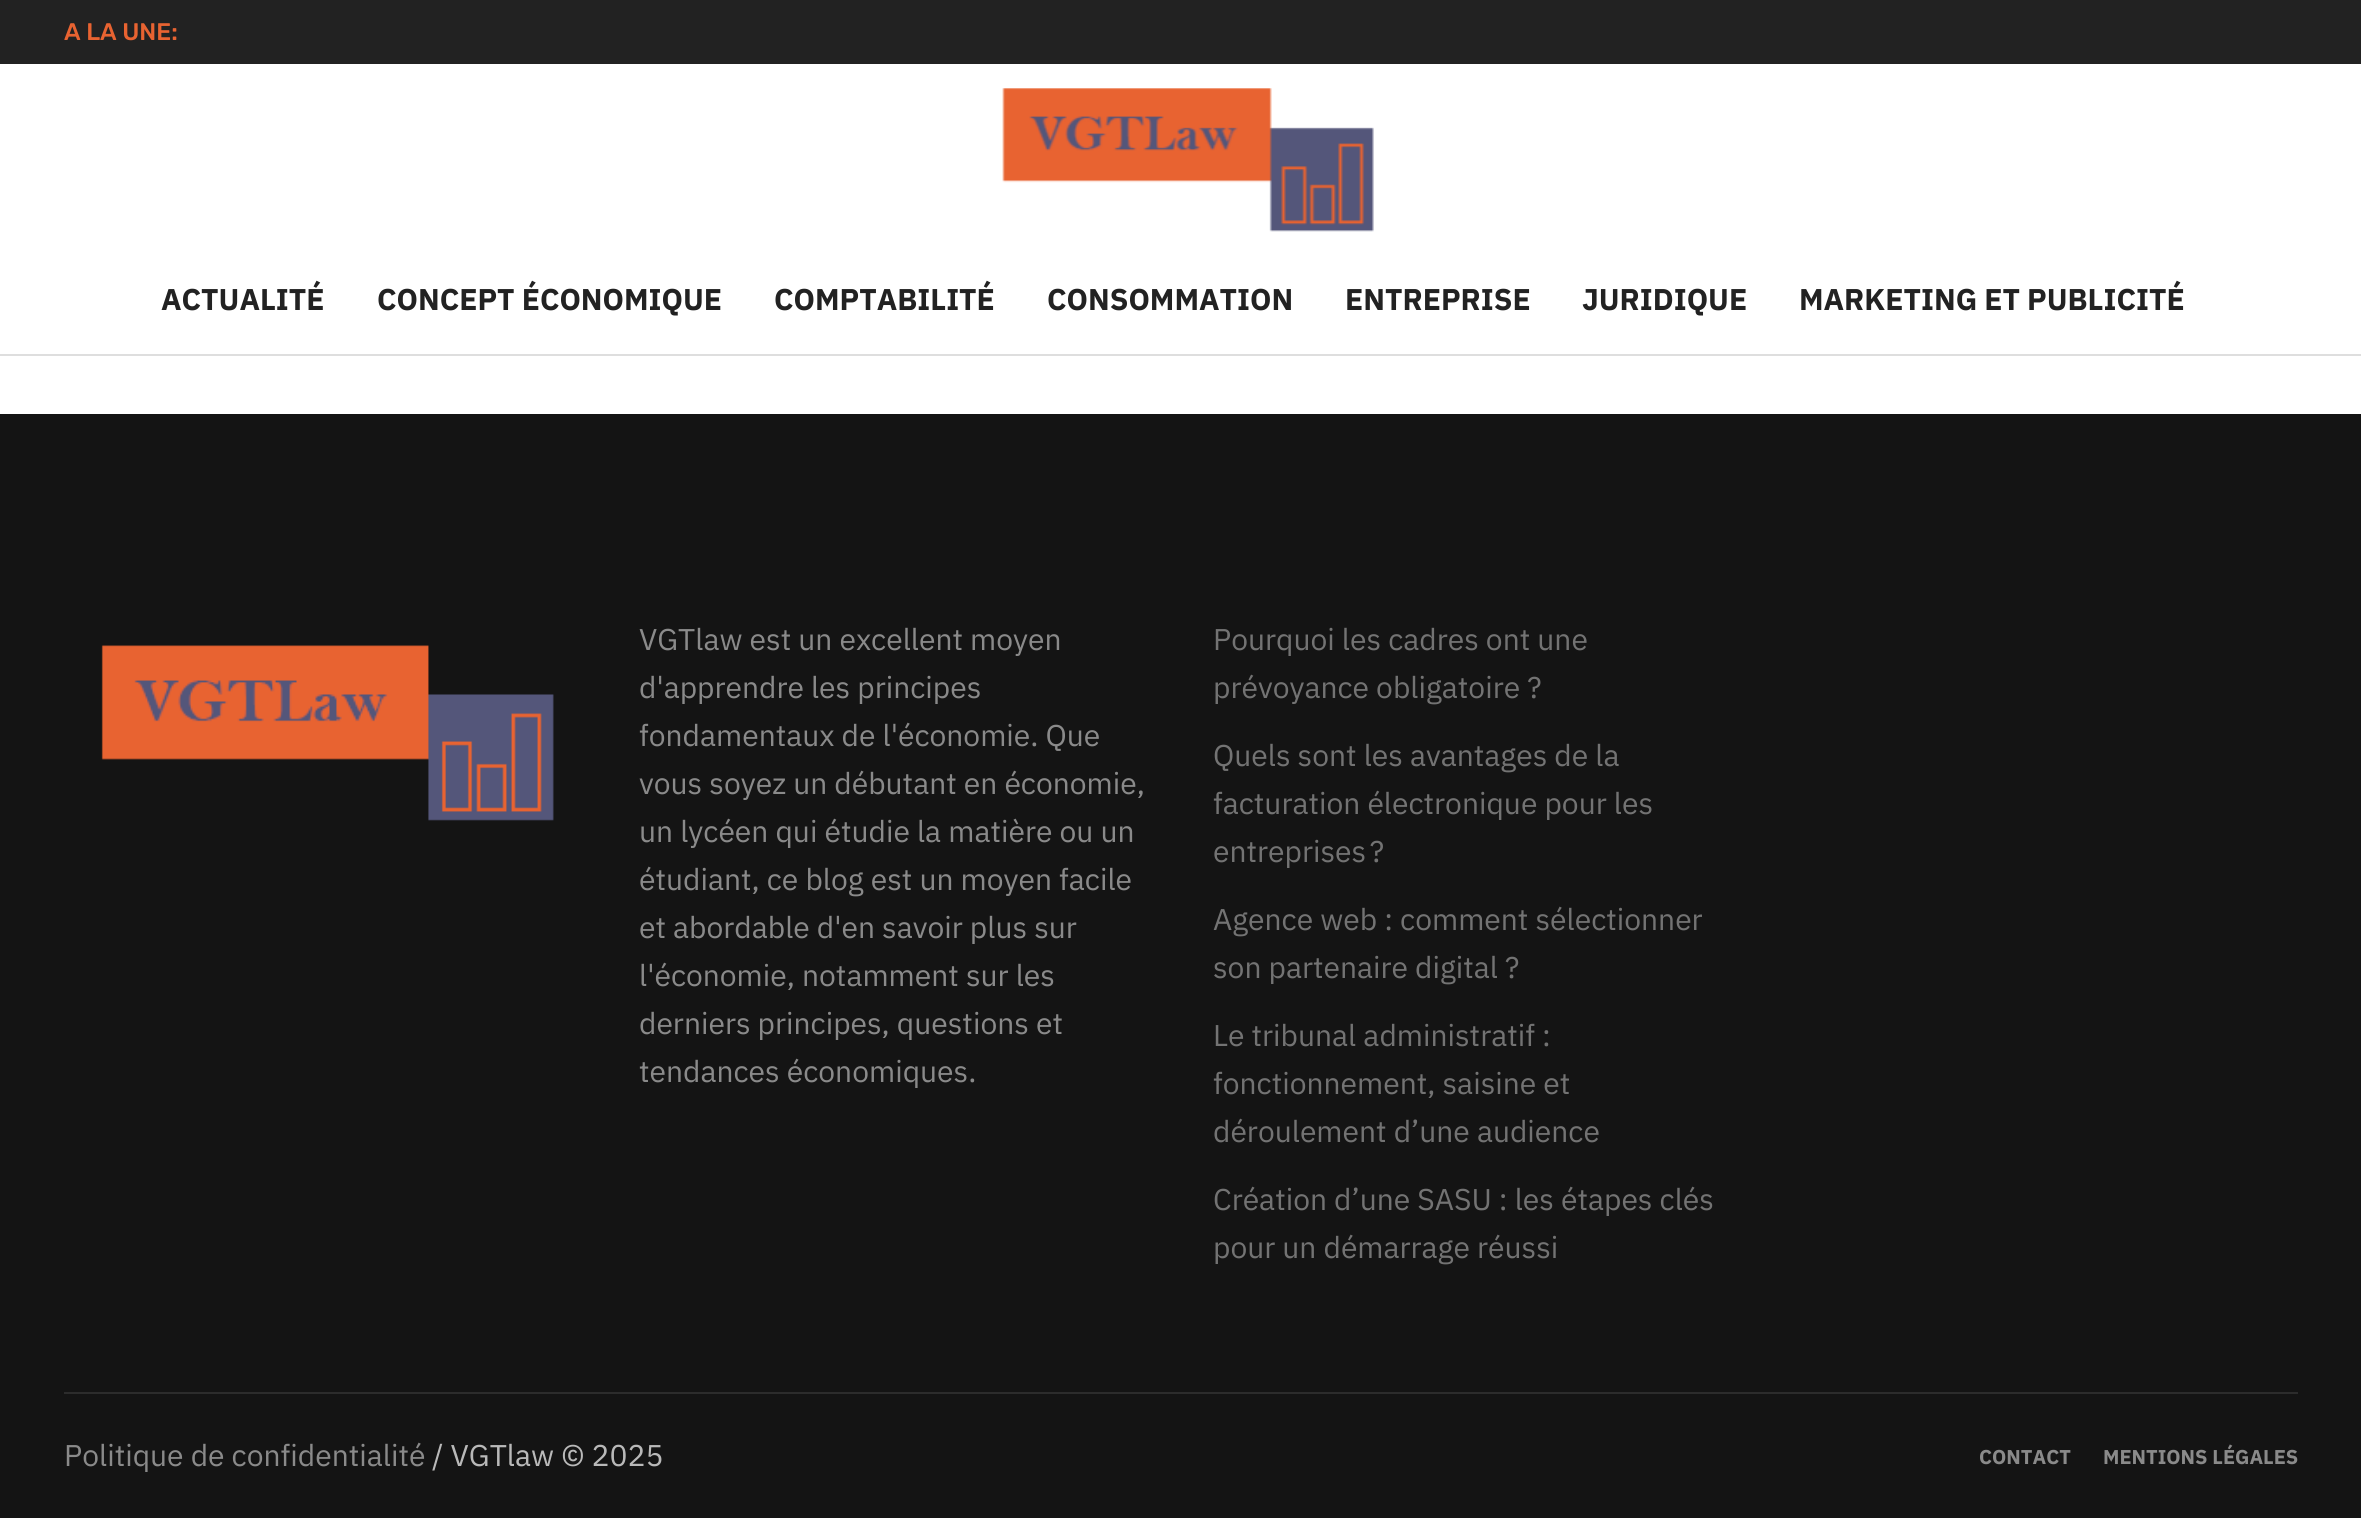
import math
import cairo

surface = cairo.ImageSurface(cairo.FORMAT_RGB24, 2361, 1518)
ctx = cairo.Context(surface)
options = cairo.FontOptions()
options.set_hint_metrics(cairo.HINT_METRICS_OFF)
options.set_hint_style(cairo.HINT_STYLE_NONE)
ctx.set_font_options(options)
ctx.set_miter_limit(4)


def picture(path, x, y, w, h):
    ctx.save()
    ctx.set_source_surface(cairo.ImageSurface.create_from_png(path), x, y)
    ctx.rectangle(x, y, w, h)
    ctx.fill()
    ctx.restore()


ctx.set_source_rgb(1, 1, 1)
ctx.paint()
ctx.set_source_rgb(0.133, 0.133, 0.133)
ctx.rectangle(0, 0, 2361, 64)
ctx.fill()
ctx.select_font_face("Rubik Medium")
ctx.set_font_size(24)
ctx.set_source_rgb(0.91, 0.388, 0.192)
ctx.move_to(64, 40)
ctx.show_text("A LA UNE:")
picture("img1.png", 1002, 88, 372, 144)
ctx.set_source_rgb(0.871, 0.871, 0.871)
ctx.rectangle(0, 354, 2361, 2)
ctx.fill()
ctx.select_font_face("IBM Plex Sans", cairo.FONT_SLANT_NORMAL, cairo.FONT_WEIGHT_BOLD)
ctx.set_font_size(30)
ctx.set_source_rgb(0.133, 0.133, 0.133)
ctx.move_to(161, 310)
ctx.show_text("ACTUALITÉ")
ctx.move_to(377, 310)
ctx.show_text("CONCEPT ÉCONOMIQUE")
ctx.move_to(774, 310)
ctx.show_text("COMPTABILITÉ")
ctx.move_to(1047, 310)
ctx.show_text("CONSOMMATION")
ctx.move_to(1345, 310)
ctx.show_text("ENTREPRISE")
ctx.move_to(1582, 310)
ctx.show_text("JURIDIQUE")
ctx.move_to(1799, 310)
ctx.show_text("MARKETING ET PUBLICITÉ")
ctx.set_source_rgb(0.082, 0.082, 0.082)
ctx.rectangle(0, 414, 2361, 1104)
ctx.fill()
picture("img2.png", 101, 645, 453, 176)
ctx.select_font_face("IBM Plex Sans")
ctx.set_source_rgb(0.541, 0.541, 0.541)
ctx.move_to(639, 650)
ctx.show_text("VGTlaw est un excellent moyen")
ctx.move_to(639, 698)
ctx.show_text("d'apprendre les principes")
ctx.move_to(639, 746)
ctx.show_text("fondamentaux de l'économie. Que")
ctx.move_to(639, 794)
ctx.show_text("vous soyez un débutant en économie,")
ctx.move_to(639, 842)
ctx.show_text("un lycéen qui étudie la matière ou un")
ctx.move_to(639, 890)
ctx.show_text("étudiant, ce blog est un moyen facile")
ctx.move_to(639, 938)
ctx.show_text("et abordable d'en savoir plus sur")
ctx.move_to(639, 986)
ctx.show_text("l'économie, notamment sur les")
ctx.move_to(639, 1034)
ctx.show_text("derniers principes, questions et")
ctx.move_to(639, 1082)
ctx.show_text("tendances économiques.")
ctx.set_source_rgb(0.451, 0.451, 0.451)
ctx.move_to(1213, 650)
ctx.show_text("Pourquoi les cadres ont une")
ctx.move_to(1213, 698)
ctx.show_text("prévoyance obligatoire ?")
ctx.move_to(1213, 766)
ctx.show_text("Quels sont les avantages de la")
ctx.move_to(1213, 814)
ctx.show_text("facturation électronique pour les")
ctx.move_to(1213, 862)
ctx.show_text("entreprises ?")
ctx.move_to(1213, 930)
ctx.show_text("Agence web : comment sélectionner")
ctx.move_to(1213, 978)
ctx.show_text("son partenaire digital ?")
ctx.move_to(1213, 1046)
ctx.show_text("Le tribunal administratif :")
ctx.move_to(1213, 1094)
ctx.show_text("fonctionnement, saisine et")
ctx.move_to(1213, 1142)
ctx.show_text("déroulement d’une audience")
ctx.move_to(1213, 1210)
ctx.show_text("Création d’une SASU : les étapes clés")
ctx.move_to(1213, 1258)
ctx.show_text("pour un démarrage réussi")
ctx.set_source_rgb(0.173, 0.173, 0.173)
ctx.rectangle(64, 1392, 2234, 2)
ctx.fill()
ctx.set_source_rgb(0.541, 0.541, 0.541)
ctx.move_to(64, 1466)
ctx.show_text("Politique de confidentialité")
ctx.set_source_rgb(0.725, 0.725, 0.725)
ctx.move_to(432, 1466)
ctx.show_text("/ VGTlaw © 2025")
ctx.select_font_face("IBM Plex Sans", cairo.FONT_SLANT_NORMAL, cairo.FONT_WEIGHT_BOLD)
ctx.set_font_size(20)
ctx.set_source_rgb(0.541, 0.541, 0.541)
ctx.move_to(1979, 1464)
ctx.show_text("CONTACT")
ctx.move_to(2103, 1464)
ctx.show_text("MENTIONS LÉGALES")
surface.write_to_png("page.png")
